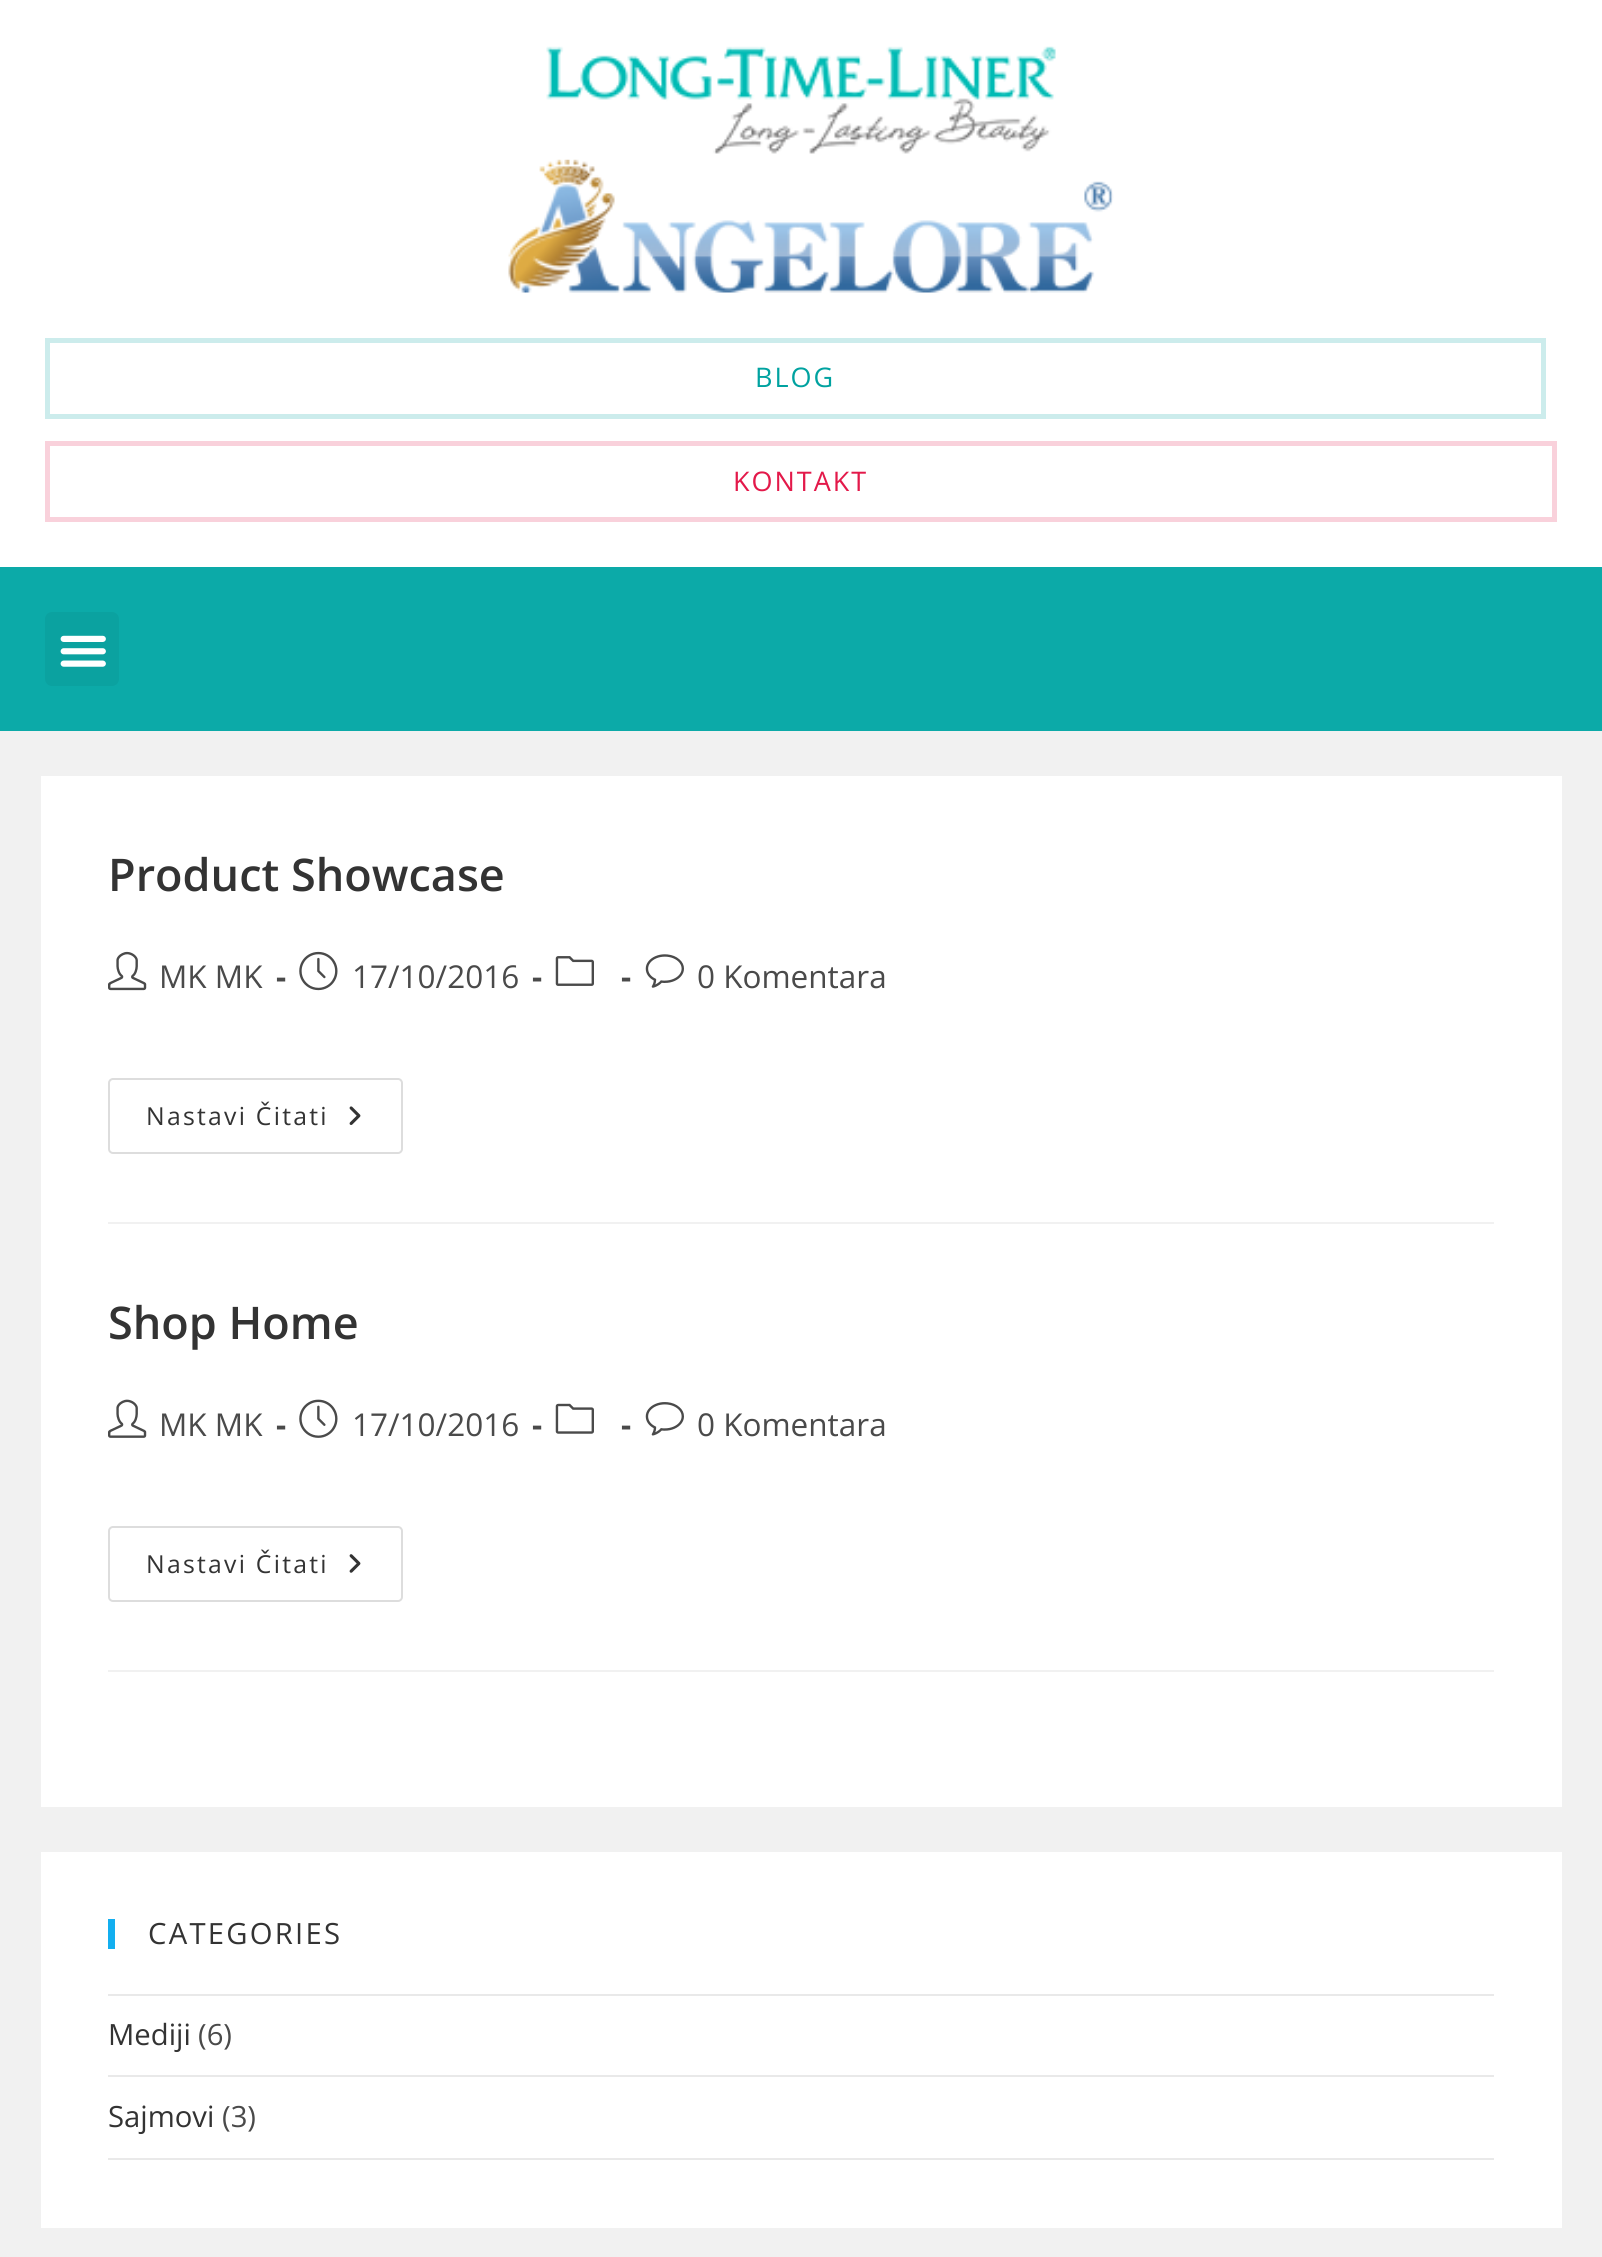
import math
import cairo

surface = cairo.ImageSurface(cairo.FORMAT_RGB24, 1602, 2257)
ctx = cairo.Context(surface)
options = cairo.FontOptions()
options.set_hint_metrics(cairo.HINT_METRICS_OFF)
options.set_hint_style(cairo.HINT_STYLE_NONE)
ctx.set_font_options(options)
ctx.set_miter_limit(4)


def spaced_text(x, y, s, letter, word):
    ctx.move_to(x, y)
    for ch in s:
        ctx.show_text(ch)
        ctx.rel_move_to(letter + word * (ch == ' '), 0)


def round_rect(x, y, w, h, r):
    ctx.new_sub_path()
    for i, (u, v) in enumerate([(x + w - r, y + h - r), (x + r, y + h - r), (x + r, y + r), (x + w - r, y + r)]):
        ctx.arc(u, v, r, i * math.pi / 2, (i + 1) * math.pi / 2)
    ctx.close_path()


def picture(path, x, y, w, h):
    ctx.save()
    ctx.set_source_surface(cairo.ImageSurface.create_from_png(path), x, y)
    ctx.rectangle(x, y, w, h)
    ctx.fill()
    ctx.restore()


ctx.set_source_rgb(0.945, 0.945, 0.945)
ctx.paint()
ctx.set_source_rgb(1, 1, 1)
ctx.rectangle(0, 0, 1602, 567)
ctx.fill()
picture("img1.png", 546, 46, 510, 108)
picture("img2.png", 508, 159, 606, 134)
ctx.rectangle(47.5, 340.5, 1496, 76)
ctx.set_source_rgb(0.8, 0.925, 0.925)
ctx.set_line_width(5)
ctx.stroke()
ctx.select_font_face("Open Sans")
ctx.set_font_size(27)
ctx.set_source_rgb(0, 0.635, 0.627)
spaced_text(755, 387, "BLOG", 2, 0)
ctx.rectangle(47.5, 443.5, 1507, 76)
ctx.set_source_rgb(0.976, 0.82, 0.859)
ctx.stroke()
ctx.set_source_rgb(0.89, 0.098, 0.29)
spaced_text(733, 491, "KONTAKT", 2, 0)
ctx.set_source_rgb(0.047, 0.667, 0.659)
ctx.rectangle(0, 567, 1602, 164)
ctx.fill()
ctx.set_source_rgb(0.043, 0.635, 0.627)
round_rect(45, 612, 74, 74, 7)
ctx.fill()
picture("img3.png", 60, 635, 46, 32)
ctx.set_source_rgb(1, 1, 1)
ctx.rectangle(41, 776, 1521, 1031)
ctx.fill()
ctx.set_source_rgb(0.945, 0.945, 0.945)
ctx.rectangle(108, 1222, 1386, 2)
ctx.fill()
ctx.select_font_face("Open Sans SemiBold")
ctx.set_font_size(45)
ctx.set_source_rgb(0.2, 0.2, 0.2)
ctx.move_to(108, 891)
ctx.show_text("Product Showcase")
picture("img4.png", 108, 951, 39, 40)
ctx.select_font_face("Open Sans")
ctx.set_font_size(31.5)
ctx.set_source_rgb(0.29, 0.29, 0.29)
ctx.move_to(159, 988)
ctx.show_text("MK MK")
ctx.select_font_face("Open Sans", cairo.FONT_SLANT_NORMAL, cairo.FONT_WEIGHT_BOLD)
ctx.move_to(276, 988)
ctx.show_text("-")
picture("img5.png", 299, 951, 39, 40)
ctx.select_font_face("Open Sans")
ctx.move_to(352, 988)
ctx.show_text("17/10/2016")
ctx.select_font_face("Open Sans", cairo.FONT_SLANT_NORMAL, cairo.FONT_WEIGHT_BOLD)
ctx.move_to(532, 988)
ctx.show_text("-")
picture("img6.png", 555, 956, 39, 30)
ctx.move_to(621, 988)
ctx.show_text("-")
picture("img7.png", 645, 954, 39, 34)
ctx.select_font_face("Open Sans")
ctx.move_to(697, 988)
ctx.show_text("0 Komentara")
round_rect(109, 1079, 293, 74, 4)
ctx.set_source_rgb(0.867, 0.867, 0.867)
ctx.set_line_width(2)
ctx.stroke()
ctx.set_font_size(24.75)
ctx.set_source_rgb(0.2, 0.2, 0.2)
spaced_text(146, 1125, "Nastavi Čitati", 2.25, 0)
picture("img8.png", 349, 1106, 12, 19)
ctx.set_source_rgb(0.945, 0.945, 0.945)
ctx.rectangle(108, 1670, 1386, 2)
ctx.fill()
ctx.select_font_face("Open Sans SemiBold")
ctx.set_font_size(45)
ctx.set_source_rgb(0.2, 0.2, 0.2)
ctx.move_to(108, 1339)
ctx.show_text("Shop Home")
picture("img9.png", 108, 1399, 39, 39)
ctx.select_font_face("Open Sans")
ctx.set_font_size(31.5)
ctx.set_source_rgb(0.29, 0.29, 0.29)
ctx.move_to(159, 1436)
ctx.show_text("MK MK")
ctx.select_font_face("Open Sans", cairo.FONT_SLANT_NORMAL, cairo.FONT_WEIGHT_BOLD)
ctx.move_to(276, 1436)
ctx.show_text("-")
picture("img10.png", 299, 1399, 39, 39)
ctx.select_font_face("Open Sans")
ctx.move_to(352, 1436)
ctx.show_text("17/10/2016")
ctx.select_font_face("Open Sans", cairo.FONT_SLANT_NORMAL, cairo.FONT_WEIGHT_BOLD)
ctx.move_to(532, 1436)
ctx.show_text("-")
picture("img11.png", 555, 1403, 39, 31)
ctx.move_to(621, 1436)
ctx.show_text("-")
picture("img12.png", 645, 1402, 39, 34)
ctx.select_font_face("Open Sans")
ctx.move_to(697, 1436)
ctx.show_text("0 Komentara")
round_rect(109, 1527, 293, 74, 4)
ctx.set_source_rgb(0.867, 0.867, 0.867)
ctx.stroke()
ctx.set_font_size(24.75)
ctx.set_source_rgb(0.2, 0.2, 0.2)
spaced_text(146, 1573, "Nastavi Čitati", 2.25, 0)
picture("img13.png", 349, 1554, 12, 19)
ctx.set_source_rgb(1, 1, 1)
ctx.rectangle(41, 1852, 1521, 376)
ctx.fill()
ctx.set_source_rgb(0.075, 0.686, 0.941)
ctx.rectangle(108, 1919, 7, 30)
ctx.fill()
ctx.set_font_size(29.25)
ctx.set_source_rgb(0.2, 0.2, 0.2)
spaced_text(148, 1944, "CATEGORIES", 2.25, 0)
ctx.set_source_rgb(0.914, 0.914, 0.914)
ctx.rectangle(108, 1994, 1386, 2)
ctx.fill()
ctx.rectangle(108, 2075, 1386, 2)
ctx.fill()
ctx.set_source_rgb(0.2, 0.2, 0.2)
ctx.move_to(108, 2045)
ctx.show_text("Mediji")
ctx.set_source_rgb(0.29, 0.29, 0.29)
ctx.move_to(198, 2045)
ctx.show_text("(6)")
ctx.set_source_rgb(0.914, 0.914, 0.914)
ctx.rectangle(108, 2158, 1386, 2)
ctx.fill()
ctx.set_source_rgb(0.2, 0.2, 0.2)
ctx.move_to(108, 2127)
ctx.show_text("Sajmovi")
ctx.set_source_rgb(0.29, 0.29, 0.29)
ctx.move_to(222, 2127)
ctx.show_text("(3)")
surface.write_to_png("page.png")
